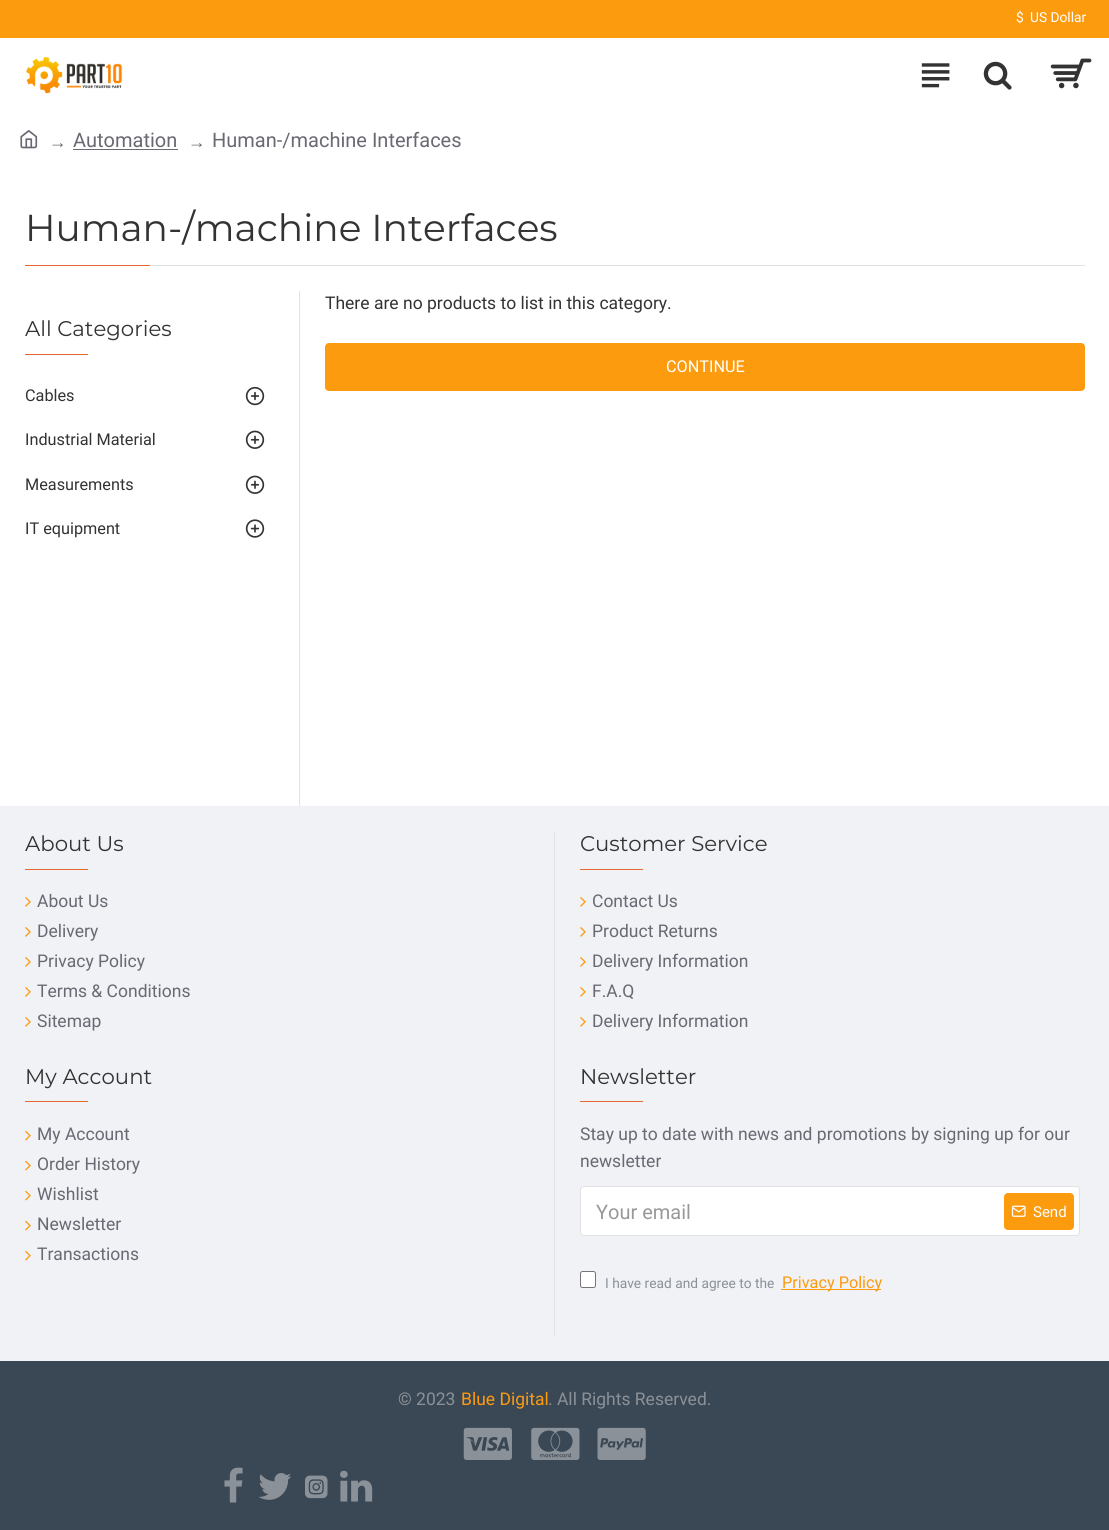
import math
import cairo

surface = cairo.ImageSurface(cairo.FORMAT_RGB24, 1109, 1530)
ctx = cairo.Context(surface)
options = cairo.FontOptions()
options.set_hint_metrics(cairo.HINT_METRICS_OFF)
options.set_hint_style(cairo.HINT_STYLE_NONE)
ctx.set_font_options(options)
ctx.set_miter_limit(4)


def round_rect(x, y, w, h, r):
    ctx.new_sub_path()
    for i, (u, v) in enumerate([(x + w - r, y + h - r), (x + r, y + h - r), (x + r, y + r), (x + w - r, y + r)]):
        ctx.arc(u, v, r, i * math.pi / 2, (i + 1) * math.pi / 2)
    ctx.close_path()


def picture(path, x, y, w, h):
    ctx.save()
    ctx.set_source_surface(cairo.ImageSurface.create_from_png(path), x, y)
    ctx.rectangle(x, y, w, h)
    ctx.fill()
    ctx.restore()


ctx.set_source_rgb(1, 1, 1)
ctx.paint()
ctx.set_source_rgb(0.992, 0.608, 0.059)
ctx.rectangle(0, 0, 1109, 38)
ctx.fill()
ctx.select_font_face("Roboto")
ctx.set_font_size(13.75)
ctx.set_source_rgb(1, 1, 1)
ctx.move_to(1016, 22)
ctx.show_text("$")
ctx.move_to(1030, 22)
ctx.show_text("US Dollar")
picture("img1.png", 26, 57, 97, 37)
picture("img2.png", 921, 63, 29, 25)
picture("img3.png", 983, 61, 29, 29)
picture("img4.png", 1050, 58, 42, 31)
picture("img5.png", 20, 130, 18, 19)
ctx.select_font_face("Liberation Serif")
ctx.set_font_size(17.5)
ctx.set_source_rgb(0.412, 0.412, 0.451)
ctx.move_to(49, 148)
ctx.show_text("→")
ctx.select_font_face("Roboto")
ctx.set_font_size(20)
ctx.move_to(73, 147)
ctx.show_text("Automation")
ctx.rectangle(73, 149, 105, 1)
ctx.fill()
ctx.select_font_face("Liberation Serif")
ctx.set_font_size(17.5)
ctx.move_to(188, 148)
ctx.show_text("→")
ctx.select_font_face("Roboto")
ctx.set_font_size(20)
ctx.move_to(212, 147)
ctx.show_text("Human-/machine Interfaces")
ctx.set_source_rgb(0.886, 0.886, 0.886)
ctx.rectangle(150, 265, 935, 1)
ctx.fill()
ctx.select_font_face("Montserrat")
ctx.set_font_size(37.5)
ctx.set_source_rgb(0.2, 0.2, 0.2)
ctx.move_to(25, 241)
ctx.show_text("Human-/machine Interfaces")
ctx.set_source_rgb(0.914, 0.4, 0.192)
ctx.rectangle(25, 265, 125, 1)
ctx.fill()
ctx.set_source_rgb(0.886, 0.886, 0.886)
ctx.rectangle(299, 291, 1, 515)
ctx.fill()
ctx.set_font_size(21.25)
ctx.set_source_rgb(0.2, 0.2, 0.2)
ctx.move_to(25, 336)
ctx.show_text("All Categories")
ctx.set_source_rgb(0.914, 0.4, 0.192)
ctx.rectangle(25, 354, 63, 1)
ctx.fill()
ctx.select_font_face("Roboto")
ctx.set_font_size(16.25)
ctx.set_source_rgb(0.2, 0.2, 0.2)
ctx.move_to(25, 401)
ctx.show_text("Cables")
picture("img6.png", 245, 386, 20, 20)
ctx.move_to(25, 445)
ctx.show_text("Industrial Material")
picture("img7.png", 245, 430, 20, 19)
ctx.move_to(25, 490)
ctx.show_text("Measurements")
picture("img7.png", 245, 475, 20, 19)
ctx.move_to(25, 534)
ctx.show_text("IT equipment")
picture("img8.png", 245, 519, 20, 19)
ctx.set_font_size(17.5)
ctx.move_to(325, 309)
ctx.show_text("There are no products to list in this category.")
ctx.set_source_rgb(0.992, 0.608, 0.059)
round_rect(325, 343, 760, 48, 4)
ctx.fill()
ctx.set_font_size(16.25)
ctx.set_source_rgb(1, 1, 1)
ctx.move_to(666, 372)
ctx.show_text("CONTINUE")
ctx.set_source_rgb(0.941, 0.949, 0.961)
ctx.rectangle(0, 806, 1109, 555)
ctx.fill()
ctx.set_source_rgb(0.886, 0.886, 0.886)
ctx.rectangle(554, 831, 1, 505)
ctx.fill()
ctx.select_font_face("Montserrat")
ctx.set_font_size(21.25)
ctx.set_source_rgb(0.2, 0.2, 0.2)
ctx.move_to(25, 851)
ctx.show_text("About Us")
ctx.set_source_rgb(0.914, 0.4, 0.192)
ctx.rectangle(25, 869, 63, 1)
ctx.fill()
picture("img9.png", 25, 897, 6, 10)
ctx.select_font_face("Roboto")
ctx.set_font_size(17.5)
ctx.set_source_rgb(0.412, 0.412, 0.451)
ctx.move_to(37, 907)
ctx.show_text("About Us")
picture("img9.png", 25, 927, 6, 10)
ctx.move_to(37, 937)
ctx.show_text("Delivery")
picture("img9.png", 25, 957, 6, 10)
ctx.move_to(37, 967)
ctx.show_text("Privacy Policy")
picture("img9.png", 25, 987, 6, 10)
ctx.move_to(37, 997)
ctx.show_text("Terms & Conditions")
picture("img9.png", 25, 1017, 6, 10)
ctx.move_to(37, 1027)
ctx.show_text("Sitemap")
ctx.select_font_face("Montserrat")
ctx.set_font_size(21.25)
ctx.set_source_rgb(0.2, 0.2, 0.2)
ctx.move_to(580, 851)
ctx.show_text("Customer Service")
ctx.set_source_rgb(0.914, 0.4, 0.192)
ctx.rectangle(580, 869, 63, 1)
ctx.fill()
picture("img9.png", 580, 897, 6, 10)
ctx.select_font_face("Roboto")
ctx.set_font_size(17.5)
ctx.set_source_rgb(0.412, 0.412, 0.451)
ctx.move_to(592, 907)
ctx.show_text("Contact Us")
picture("img9.png", 580, 927, 6, 10)
ctx.move_to(592, 937)
ctx.show_text("Product Returns")
picture("img9.png", 580, 957, 6, 10)
ctx.move_to(592, 967)
ctx.show_text("Delivery Information")
picture("img9.png", 580, 987, 6, 10)
ctx.move_to(592, 997)
ctx.show_text("F.A.Q")
picture("img9.png", 580, 1017, 6, 10)
ctx.move_to(592, 1027)
ctx.show_text("Delivery Information")
ctx.select_font_face("Montserrat")
ctx.set_font_size(21.25)
ctx.set_source_rgb(0.2, 0.2, 0.2)
ctx.move_to(25, 1084)
ctx.show_text("My Account")
ctx.set_source_rgb(0.914, 0.4, 0.192)
ctx.rectangle(25, 1101, 63, 1)
ctx.fill()
picture("img10.png", 25, 1130, 6, 11)
ctx.select_font_face("Roboto")
ctx.set_font_size(17.5)
ctx.set_source_rgb(0.412, 0.412, 0.451)
ctx.move_to(37, 1140)
ctx.show_text("My Account")
picture("img10.png", 25, 1160, 6, 11)
ctx.move_to(37, 1170)
ctx.show_text("Order History")
picture("img10.png", 25, 1190, 6, 11)
ctx.move_to(37, 1200)
ctx.show_text("Wishlist")
picture("img10.png", 25, 1220, 6, 11)
ctx.move_to(37, 1230)
ctx.show_text("Newsletter")
picture("img10.png", 25, 1250, 6, 11)
ctx.move_to(37, 1260)
ctx.show_text("Transactions")
ctx.select_font_face("Montserrat")
ctx.set_font_size(21.25)
ctx.set_source_rgb(0.2, 0.2, 0.2)
ctx.move_to(580, 1084)
ctx.show_text("Newsletter")
ctx.set_source_rgb(0.914, 0.4, 0.192)
ctx.rectangle(580, 1101, 63, 1)
ctx.fill()
ctx.select_font_face("Roboto")
ctx.set_font_size(17.5)
ctx.set_source_rgb(0.412, 0.412, 0.451)
ctx.move_to(580, 1140)
ctx.show_text("Stay up to date with news and promotions by signing up for our")
ctx.move_to(580, 1167)
ctx.show_text("newsletter")
ctx.set_source_rgb(1, 1, 1)
round_rect(580.5, 1186.5, 499, 49, 3.5)
ctx.fill_preserve()
ctx.set_source_rgb(0.886, 0.886, 0.886)
ctx.set_line_width(1)
ctx.stroke()
ctx.set_font_size(20)
ctx.set_source_rgb(0.6, 0.6, 0.6)
ctx.move_to(596, 1219)
ctx.show_text("Your email")
ctx.set_source_rgb(0.992, 0.608, 0.059)
round_rect(1004, 1193, 70, 37, 4)
ctx.fill()
picture("img11.png", 1011, 1205, 15, 12)
ctx.set_font_size(15)
ctx.set_source_rgb(1, 1, 1)
ctx.move_to(1033, 1217)
ctx.show_text("Send")
round_rect(580.5, 1271.5, 15, 16, 2)
ctx.fill_preserve()
ctx.set_source_rgb(0.463, 0.463, 0.463)
ctx.stroke()
ctx.set_font_size(13.75)
ctx.set_source_rgb(0.545, 0.569, 0.596)
ctx.move_to(605, 1288)
ctx.show_text("I have read and agree to the")
ctx.set_source_rgb(0.992, 0.608, 0.059)
ctx.rectangle(781, 1289, 100, 1)
ctx.fill()
ctx.set_font_size(16.25)
ctx.move_to(782, 1288)
ctx.show_text("Privacy Policy")
ctx.set_source_rgb(0.227, 0.278, 0.329)
ctx.rectangle(0, 1361, 1109, 169)
ctx.fill()
ctx.set_font_size(17.5)
ctx.set_source_rgb(0.545, 0.569, 0.596)
ctx.move_to(398, 1405)
ctx.show_text("© 2023")
ctx.set_source_rgb(0.992, 0.608, 0.059)
ctx.move_to(461, 1405)
ctx.show_text("Blue Digital")
ctx.set_source_rgb(0.545, 0.569, 0.596)
ctx.move_to(548, 1405)
ctx.show_text(". All Rights Reserved.")
picture("img12.png", 463, 1427, 49, 33)
picture("img13.png", 531, 1427, 49, 33)
picture("img14.png", 597, 1427, 49, 33)
picture("img15.png", 224, 1467, 19, 36)
picture("img16.png", 258, 1473, 34, 27)
picture("img17.png", 305, 1475, 23, 24)
picture("img18.png", 340, 1470, 33, 32)
surface.write_to_png("page.png")
